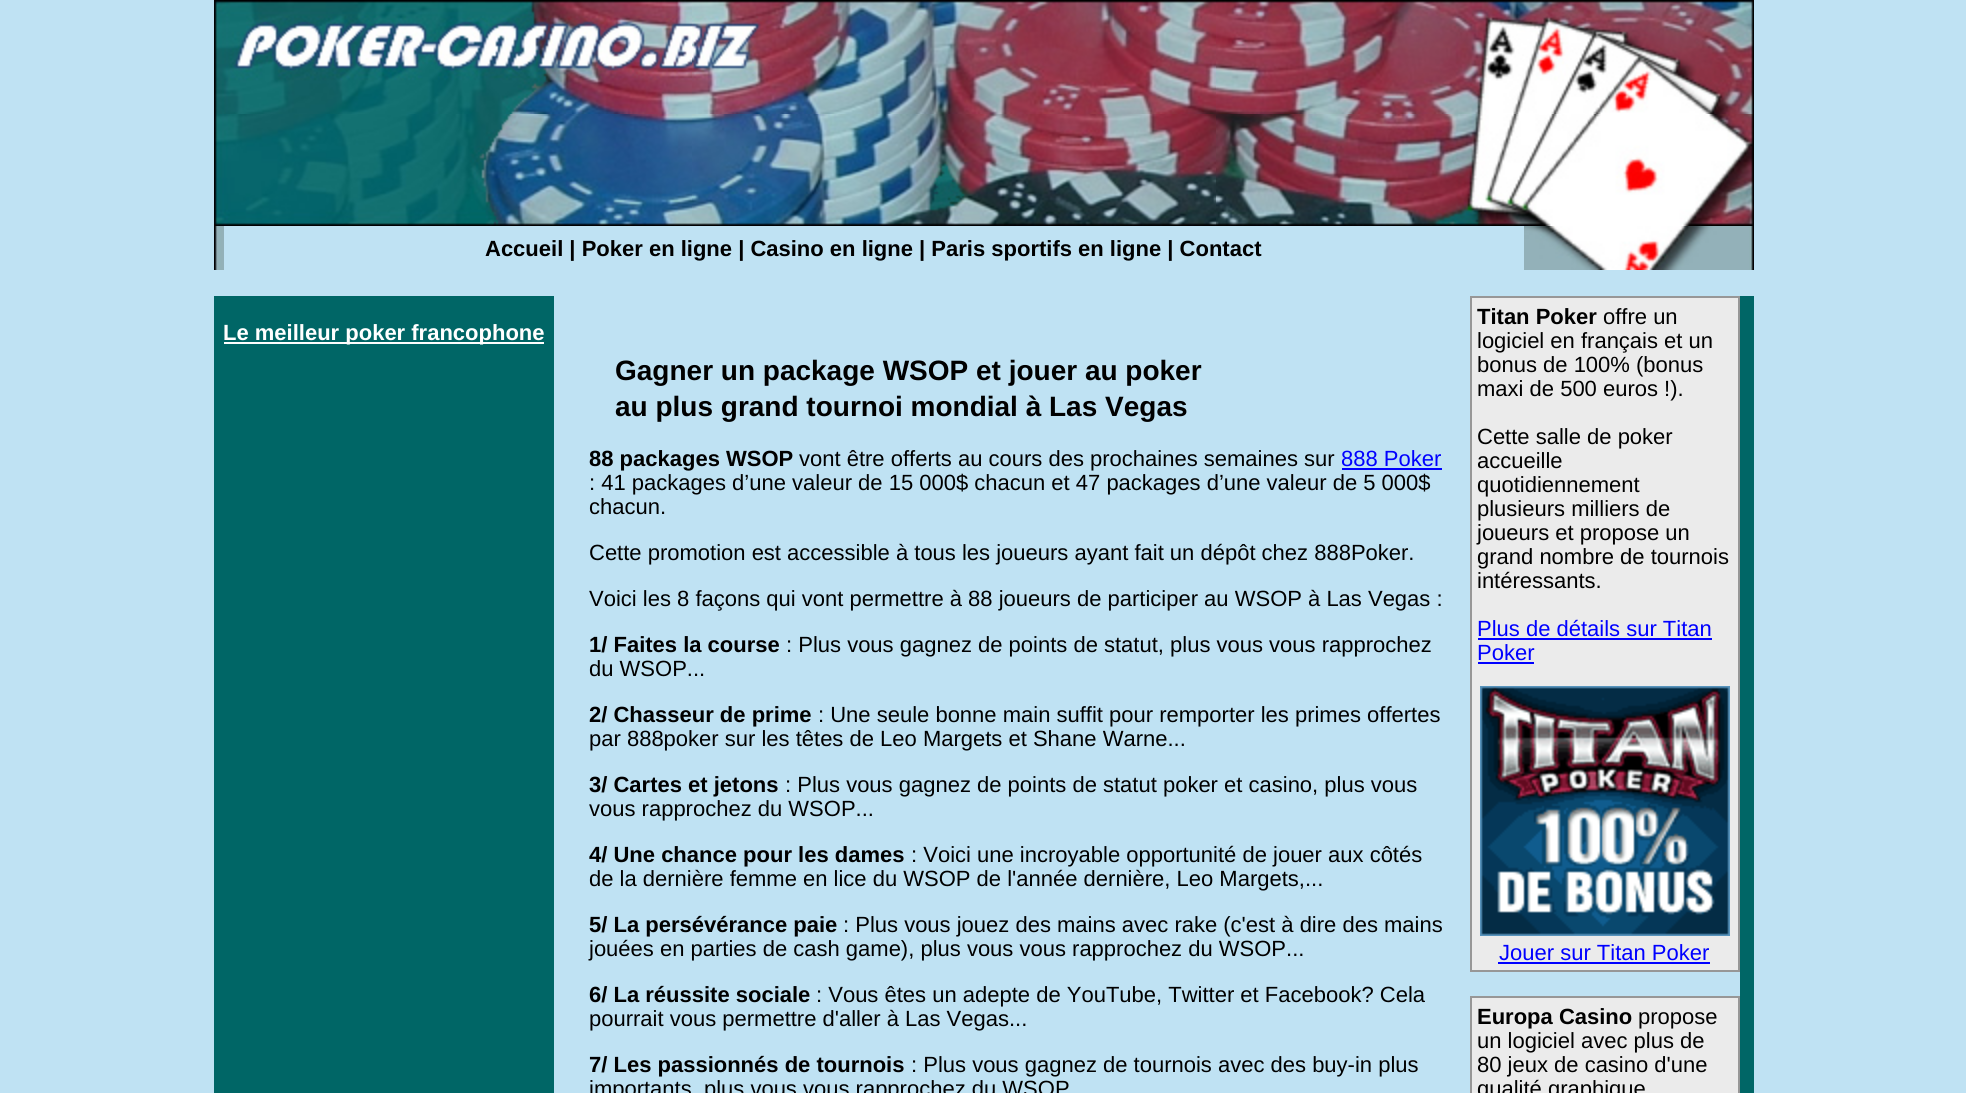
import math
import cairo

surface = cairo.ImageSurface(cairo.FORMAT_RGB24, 1966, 1093)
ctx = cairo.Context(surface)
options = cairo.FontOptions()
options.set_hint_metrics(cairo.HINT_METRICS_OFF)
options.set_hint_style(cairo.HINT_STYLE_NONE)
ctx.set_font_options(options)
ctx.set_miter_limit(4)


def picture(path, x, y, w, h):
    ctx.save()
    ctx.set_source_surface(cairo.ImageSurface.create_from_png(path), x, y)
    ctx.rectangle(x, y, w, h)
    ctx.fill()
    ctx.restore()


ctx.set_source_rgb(0.749, 0.886, 0.953)
ctx.paint()
picture("img1.png", 214, 0, 478, 114)
picture("img2.png", 692, 0, 524, 114)
picture("img3.png", 1216, 0, 538, 114)
picture("img4.png", 214, 114, 478, 112)
picture("img5.png", 692, 114, 524, 112)
picture("img6.png", 1216, 114, 538, 112)
picture("img7.png", 214, 226, 10, 44)
ctx.select_font_face("Liberation Sans", cairo.FONT_SLANT_NORMAL, cairo.FONT_WEIGHT_BOLD)
ctx.set_font_size(22)
ctx.set_source_rgb(0, 0, 0)
ctx.move_to(485, 256)
ctx.show_text("Accueil | Poker en ligne | Casino en ligne | Paris sportifs en ligne | Contact")
picture("img8.png", 1524, 226, 230, 44)
ctx.set_source_rgb(0, 0.4, 0.4)
ctx.rectangle(214, 296, 340, 797)
ctx.fill()
ctx.set_source_rgb(0.918, 0.918, 0.918)
ctx.rectangle(1471, 297, 268, 674)
ctx.fill_preserve()
ctx.set_source_rgb(0.592, 0.592, 0.592)
ctx.stroke()
ctx.set_source_rgb(0, 0, 0)
ctx.move_to(1477, 324)
ctx.show_text("Titan Poker")
ctx.select_font_face("Liberation Sans")
ctx.move_to(1603, 324)
ctx.show_text("offre un")
ctx.move_to(1477, 348)
ctx.show_text("logiciel en français et un")
ctx.move_to(1477, 372)
ctx.show_text("bonus de 100% (bonus")
ctx.move_to(1477, 396)
ctx.show_text("maxi de 500 euros !).")
ctx.move_to(1477, 444)
ctx.show_text("Cette salle de poker")
ctx.move_to(1477, 468)
ctx.show_text("accueille")
ctx.move_to(1477, 492)
ctx.show_text("quotidiennement")
ctx.move_to(1477, 516)
ctx.show_text("plusieurs milliers de")
ctx.move_to(1477, 540)
ctx.show_text("joueurs et propose un")
ctx.move_to(1477, 564)
ctx.show_text("grand nombre de tournois")
ctx.move_to(1477, 588)
ctx.show_text("intéressants.")
ctx.set_source_rgb(0, 0, 1)
ctx.move_to(1477, 636)
ctx.show_text("Plus de détails sur Titan")
ctx.rectangle(1478, 638, 234, 2)
ctx.fill()
ctx.move_to(1477, 660)
ctx.show_text("Poker")
ctx.rectangle(1478, 662, 56, 2)
ctx.fill()
picture("img9.png", 1480, 686, 250, 250)
ctx.move_to(1499, 960)
ctx.show_text("Jouer sur Titan Poker")
ctx.rectangle(1498, 962, 212, 2)
ctx.fill()
ctx.set_source_rgb(0.918, 0.918, 0.918)
ctx.rectangle(1471, 997, 268, 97)
ctx.fill_preserve()
ctx.set_source_rgb(0.592, 0.592, 0.592)
ctx.stroke()
ctx.select_font_face("Liberation Sans", cairo.FONT_SLANT_NORMAL, cairo.FONT_WEIGHT_BOLD)
ctx.set_source_rgb(0, 0, 0)
ctx.move_to(1477, 1024)
ctx.show_text("Europa Casino")
ctx.select_font_face("Liberation Sans")
ctx.move_to(1638, 1024)
ctx.show_text("propose")
ctx.move_to(1477, 1048)
ctx.show_text("un logiciel avec plus de")
ctx.move_to(1477, 1072)
ctx.show_text("80 jeux de casino d'une")
ctx.move_to(1477, 1096)
ctx.show_text("qualité graphique")
ctx.set_source_rgb(0, 0.4, 0.4)
ctx.rectangle(1740, 296, 14, 797)
ctx.fill()
ctx.set_source_rgb(1, 1, 1)
ctx.rectangle(224, 342, 320, 2)
ctx.fill()
ctx.select_font_face("Liberation Sans", cairo.FONT_SLANT_NORMAL, cairo.FONT_WEIGHT_BOLD)
ctx.move_to(223, 340)
ctx.show_text("Le meilleur poker francophone")
ctx.set_font_size(28)
ctx.set_source_rgb(0, 0, 0)
ctx.move_to(615, 380)
ctx.show_text("Gagner un package WSOP et jouer au poker")
ctx.move_to(615, 416)
ctx.show_text("au plus grand tournoi mondial à Las Vegas")
ctx.set_font_size(22)
ctx.move_to(589, 466)
ctx.show_text("88 packages WSOP")
ctx.select_font_face("Liberation Sans")
ctx.move_to(799, 466)
ctx.show_text("vont être offerts au cours des prochaines semaines sur")
ctx.set_source_rgb(0, 0, 1)
ctx.move_to(1341, 466)
ctx.show_text("888 Poker")
ctx.rectangle(1342, 468, 100, 2)
ctx.fill()
ctx.set_source_rgb(0, 0, 0)
ctx.move_to(589, 490)
ctx.show_text(": 41 packages d’une valeur de 15 000$ chacun et 47 packages d’une valeur de 5 000$")
ctx.move_to(589, 514)
ctx.show_text("chacun.")
ctx.move_to(589, 560)
ctx.show_text("Cette promotion est accessible à tous les joueurs ayant fait un dépôt chez 888Poker.")
ctx.move_to(589, 606)
ctx.show_text("Voici les 8 façons qui vont permettre à 88 joueurs de participer au WSOP à Las Vegas :")
ctx.select_font_face("Liberation Sans", cairo.FONT_SLANT_NORMAL, cairo.FONT_WEIGHT_BOLD)
ctx.move_to(589, 652)
ctx.show_text("1/ Faites la course")
ctx.select_font_face("Liberation Sans")
ctx.move_to(786, 652)
ctx.show_text(": Plus vous gagnez de points de statut, plus vous vous rapprochez")
ctx.move_to(589, 676)
ctx.show_text("du WSOP...")
ctx.select_font_face("Liberation Sans", cairo.FONT_SLANT_NORMAL, cairo.FONT_WEIGHT_BOLD)
ctx.move_to(589, 722)
ctx.show_text("2/ Chasseur de prime")
ctx.select_font_face("Liberation Sans")
ctx.move_to(818, 722)
ctx.show_text(": Une seule bonne main suffit pour remporter les primes offertes")
ctx.move_to(589, 746)
ctx.show_text("par 888poker sur les têtes de Leo Margets et Shane Warne...")
ctx.select_font_face("Liberation Sans", cairo.FONT_SLANT_NORMAL, cairo.FONT_WEIGHT_BOLD)
ctx.move_to(589, 792)
ctx.show_text("3/ Cartes et jetons")
ctx.select_font_face("Liberation Sans")
ctx.move_to(785, 792)
ctx.show_text(": Plus vous gagnez de points de statut poker et casino, plus vous")
ctx.move_to(589, 816)
ctx.show_text("vous rapprochez du WSOP...")
ctx.select_font_face("Liberation Sans", cairo.FONT_SLANT_NORMAL, cairo.FONT_WEIGHT_BOLD)
ctx.move_to(589, 862)
ctx.show_text("4/ Une chance pour les dames")
ctx.select_font_face("Liberation Sans")
ctx.move_to(911, 862)
ctx.show_text(": Voici une incroyable opportunité de jouer aux côtés")
ctx.move_to(589, 886)
ctx.show_text("de la dernière femme en lice du WSOP de l'année dernière, Leo Margets,...")
ctx.select_font_face("Liberation Sans", cairo.FONT_SLANT_NORMAL, cairo.FONT_WEIGHT_BOLD)
ctx.move_to(589, 932)
ctx.show_text("5/ La persévérance paie")
ctx.select_font_face("Liberation Sans")
ctx.move_to(843, 932)
ctx.show_text(": Plus vous jouez des mains avec rake (c'est à dire des mains")
ctx.move_to(589, 956)
ctx.show_text("jouées en parties de cash game), plus vous vous rapprochez du WSOP...")
ctx.select_font_face("Liberation Sans", cairo.FONT_SLANT_NORMAL, cairo.FONT_WEIGHT_BOLD)
ctx.move_to(589, 1002)
ctx.show_text("6/ La réussite sociale")
ctx.select_font_face("Liberation Sans")
ctx.move_to(816, 1002)
ctx.show_text(": Vous êtes un adepte de YouTube, Twitter et Facebook? Cela")
ctx.move_to(589, 1026)
ctx.show_text("pourrait vous permettre d'aller à Las Vegas...")
ctx.select_font_face("Liberation Sans", cairo.FONT_SLANT_NORMAL, cairo.FONT_WEIGHT_BOLD)
ctx.move_to(589, 1072)
ctx.show_text("7/ Les passionnés de tournois")
ctx.select_font_face("Liberation Sans")
ctx.move_to(911, 1072)
ctx.show_text(": Plus vous gagnez de tournois avec des buy-in plus")
ctx.move_to(589, 1096)
ctx.show_text("importants, plus vous vous rapprochez du WSOP")
surface.write_to_png("page.png")
